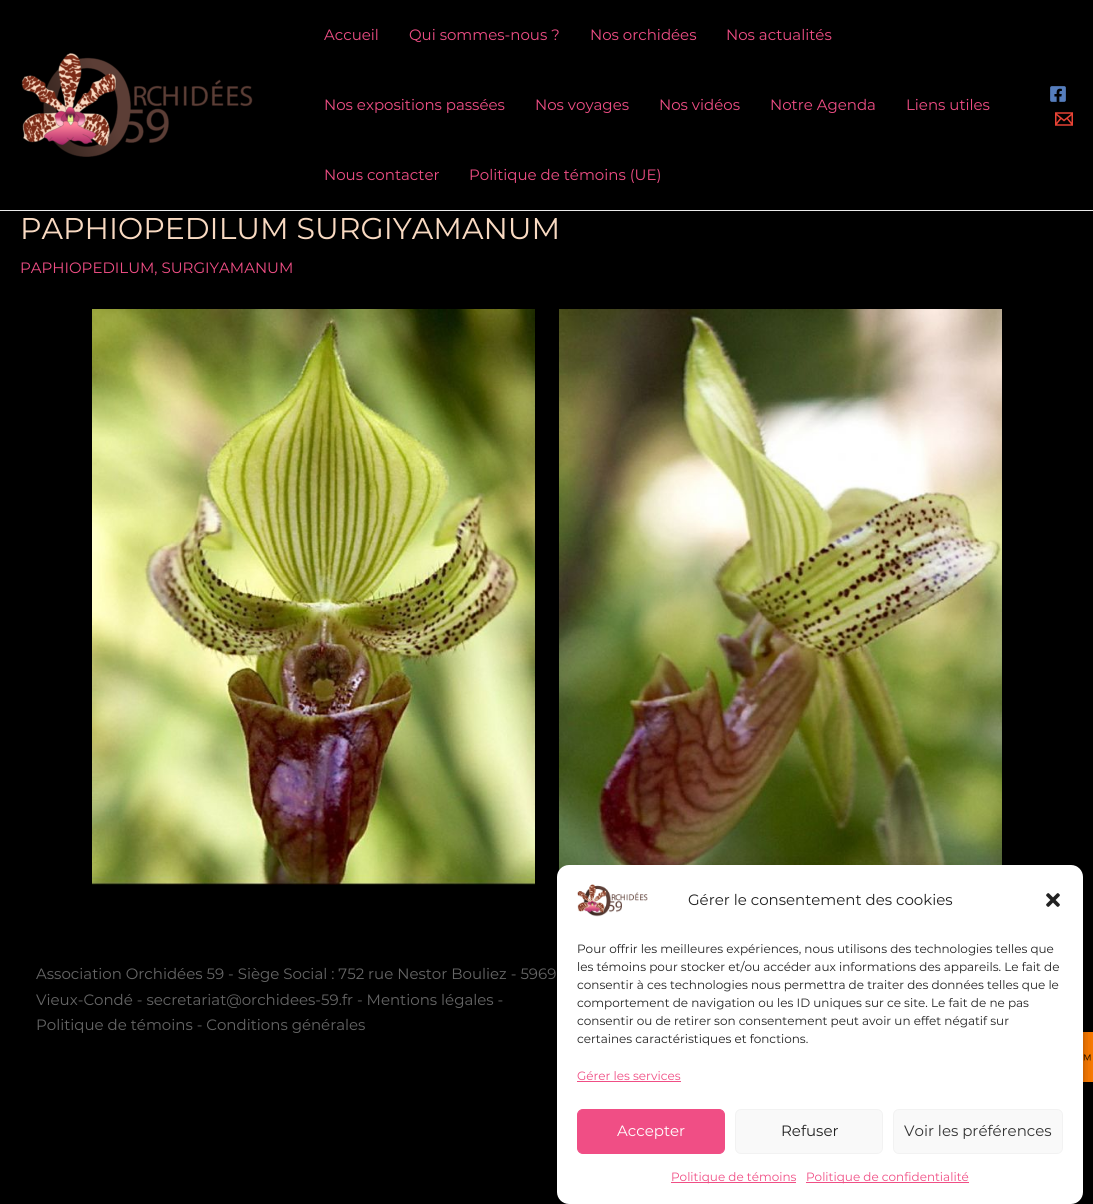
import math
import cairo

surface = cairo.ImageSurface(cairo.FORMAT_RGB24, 1093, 1204)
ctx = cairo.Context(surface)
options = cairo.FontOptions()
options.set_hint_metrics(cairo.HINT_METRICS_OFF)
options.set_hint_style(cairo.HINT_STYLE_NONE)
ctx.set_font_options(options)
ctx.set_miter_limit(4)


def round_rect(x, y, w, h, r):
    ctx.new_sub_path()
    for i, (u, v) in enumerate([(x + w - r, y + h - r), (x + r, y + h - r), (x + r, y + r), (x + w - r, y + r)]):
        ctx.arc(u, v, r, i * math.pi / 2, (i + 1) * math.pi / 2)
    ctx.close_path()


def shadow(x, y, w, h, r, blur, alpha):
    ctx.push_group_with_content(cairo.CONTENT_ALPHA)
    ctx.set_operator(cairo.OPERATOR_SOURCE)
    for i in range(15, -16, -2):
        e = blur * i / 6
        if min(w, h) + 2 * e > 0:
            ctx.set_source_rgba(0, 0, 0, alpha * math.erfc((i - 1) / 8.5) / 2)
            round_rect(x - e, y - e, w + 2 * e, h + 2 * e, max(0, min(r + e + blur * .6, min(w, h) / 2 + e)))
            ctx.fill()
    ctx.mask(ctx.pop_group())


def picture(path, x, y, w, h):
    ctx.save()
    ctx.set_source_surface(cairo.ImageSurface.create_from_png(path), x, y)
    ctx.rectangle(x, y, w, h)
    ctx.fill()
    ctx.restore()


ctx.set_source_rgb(0, 0, 0)
ctx.paint()
ctx.set_source_rgb(0.918, 0.918, 0.918)
ctx.rectangle(0, 210, 1093, 1)
ctx.fill()
picture("img1.png", 21, 53, 232, 104)
ctx.select_font_face("Montserrat")
ctx.set_font_size(15)
ctx.set_source_rgb(0.941, 0.306, 0.522)
ctx.move_to(324, 40)
ctx.show_text("Accueil")
ctx.move_to(409, 40)
ctx.show_text("Qui sommes-nous ?")
ctx.move_to(590, 40)
ctx.show_text("Nos orchidées")
ctx.move_to(726, 40)
ctx.show_text("Nos actualités")
ctx.move_to(324, 110)
ctx.show_text("Nos expositions passées")
ctx.move_to(535, 110)
ctx.show_text("Nos voyages")
ctx.move_to(659, 110)
ctx.show_text("Nos vidéos")
ctx.move_to(770, 110)
ctx.show_text("Notre Agenda")
ctx.move_to(906, 110)
ctx.show_text("Liens utiles")
ctx.move_to(324, 180)
ctx.show_text("Nous contacter")
ctx.move_to(469, 180)
ctx.show_text("Politique de témoins (UE)")
picture("img2.png", 1050, 86, 16, 16)
picture("img3.png", 1055, 112, 18, 14)
ctx.set_font_size(30)
ctx.set_source_rgb(0.976, 0.855, 0.761)
ctx.move_to(20, 239)
ctx.show_text("PAPHIOPEDILUM SURGIYAMANUM")
ctx.set_font_size(15)
ctx.set_source_rgb(0.941, 0.306, 0.522)
ctx.move_to(20, 273)
ctx.show_text("PAPHIOPEDILUM, SURGIYAMANUM")
picture("img4.png", 92, 309, 443, 576)
picture("img5.png", 559, 309, 443, 562)
ctx.set_source_rgb(0.4, 0.4, 0.4)
ctx.move_to(36, 979)
ctx.show_text("Association Orchidées 59 - Siège Social : 752 rue Nestor Bouliez - 5969")
ctx.move_to(36, 1005)
ctx.show_text("Vieux-Condé - secretariat@orchidees-59.fr - Mentions légales -")
ctx.move_to(36, 1030)
ctx.show_text("Politique de témoins - Conditions générales")
picture("img6.png", 1083, 1032, 10, 50)
ctx.set_source_rgb(0, 0, 0)
shadow(557, 871, 526, 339, 12, 3, 0.23)
shadow(557, 875, 526, 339, 12, 10, 0.19)
ctx.set_source_rgb(1, 1, 1)
round_rect(557, 865, 526, 339, 12)
ctx.fill()
picture("img7.png", 577, 884, 71, 33)
ctx.set_source_rgb(0.133, 0.133, 0.133)
ctx.move_to(688, 905)
ctx.show_text("Gérer le consentement des cookies")
picture("img8.png", 1046, 893, 14, 14)
ctx.set_font_size(12)
ctx.move_to(577, 953)
ctx.show_text("Pour offrir les meilleures expériences, nous utilisons des technologies telles que")
ctx.move_to(577, 971)
ctx.show_text("les témoins pour stocker et/ou accéder aux informations des appareils. Le fait de")
ctx.move_to(577, 989)
ctx.show_text("consentir à ces technologies nous permettra de traiter des données telles que le")
ctx.move_to(577, 1007)
ctx.show_text("comportement de navigation ou les ID uniques sur ce site. Le fait de ne pas")
ctx.move_to(577, 1025)
ctx.show_text("consentir ou de retirer son consentement peut avoir un effet négatif sur")
ctx.move_to(577, 1043)
ctx.show_text("certaines caractéristiques et fonctions.")
ctx.set_source_rgb(0.941, 0.306, 0.522)
ctx.move_to(577, 1080)
ctx.show_text("Gérer les services")
ctx.rectangle(577, 1081, 104, 1)
ctx.fill()
round_rect(577.5, 1109.5, 147, 44, 5.5)
ctx.fill_preserve()
ctx.set_line_width(1)
ctx.stroke()
ctx.set_font_size(15)
ctx.set_source_rgb(1, 1, 1)
ctx.move_to(617, 1136)
ctx.show_text("Accepter")
ctx.set_source_rgb(0.976, 0.976, 0.976)
round_rect(735.5, 1109.5, 147, 44, 5.5)
ctx.fill_preserve()
ctx.set_source_rgb(0.949, 0.949, 0.949)
ctx.stroke()
ctx.set_source_rgb(0.133, 0.133, 0.133)
ctx.move_to(781, 1136)
ctx.show_text("Refuser")
ctx.set_source_rgb(0.976, 0.976, 0.976)
round_rect(893.5, 1109.5, 169, 44, 5.5)
ctx.fill_preserve()
ctx.set_source_rgb(0.949, 0.949, 0.949)
ctx.stroke()
ctx.set_source_rgb(0.2, 0.2, 0.2)
ctx.move_to(904, 1136)
ctx.show_text("Voir les préférences")
ctx.set_source_rgb(0.941, 0.306, 0.522)
ctx.rectangle(671, 1182, 125, 1)
ctx.fill()
ctx.set_font_size(12)
ctx.move_to(671, 1181)
ctx.show_text("Politique de témoins")
ctx.rectangle(806, 1182, 163, 1)
ctx.fill()
ctx.move_to(806, 1181)
ctx.show_text("Politique de confidentialité")
surface.write_to_png("page.png")
